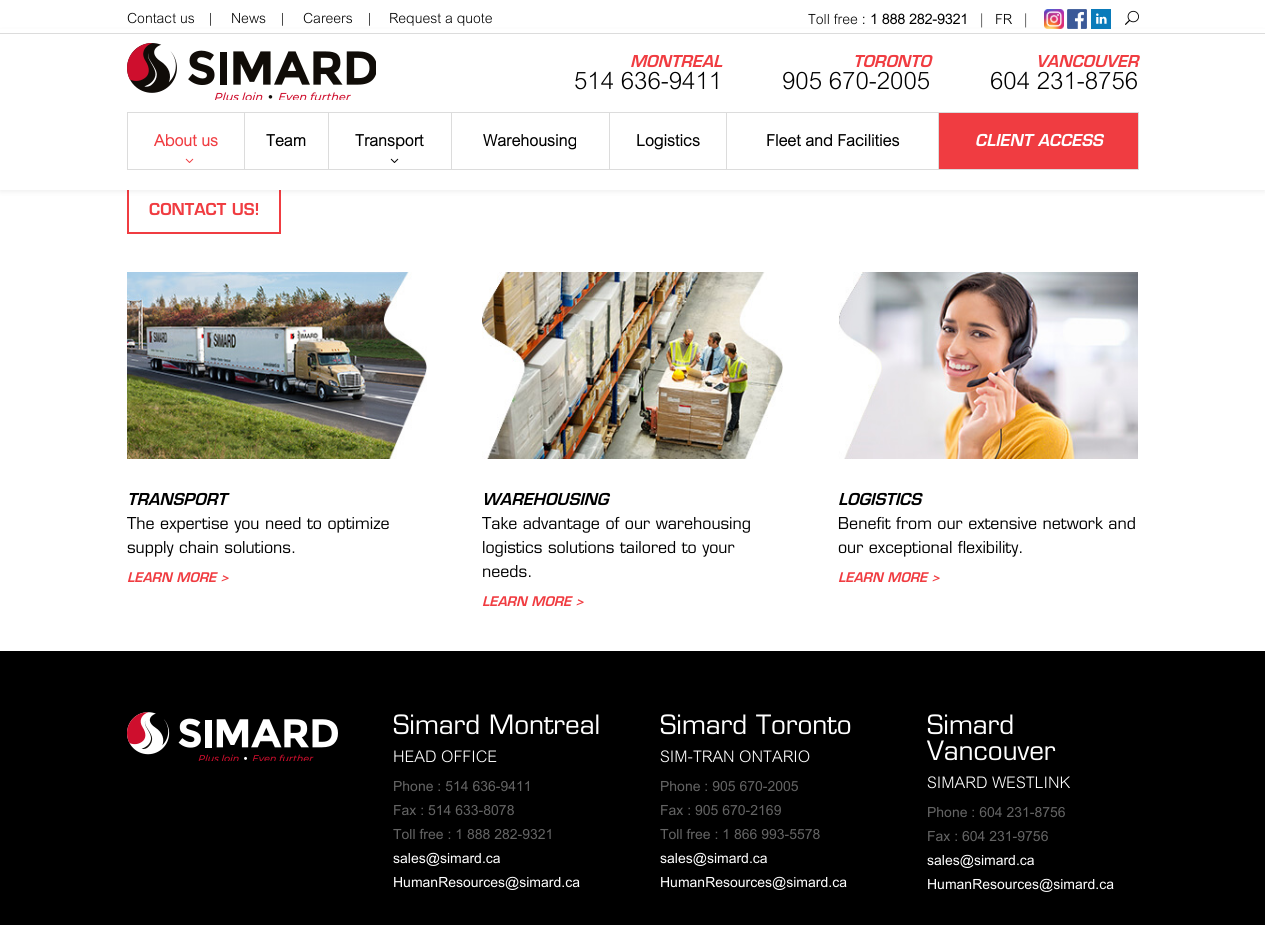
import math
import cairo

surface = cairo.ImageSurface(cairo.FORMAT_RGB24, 1265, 925)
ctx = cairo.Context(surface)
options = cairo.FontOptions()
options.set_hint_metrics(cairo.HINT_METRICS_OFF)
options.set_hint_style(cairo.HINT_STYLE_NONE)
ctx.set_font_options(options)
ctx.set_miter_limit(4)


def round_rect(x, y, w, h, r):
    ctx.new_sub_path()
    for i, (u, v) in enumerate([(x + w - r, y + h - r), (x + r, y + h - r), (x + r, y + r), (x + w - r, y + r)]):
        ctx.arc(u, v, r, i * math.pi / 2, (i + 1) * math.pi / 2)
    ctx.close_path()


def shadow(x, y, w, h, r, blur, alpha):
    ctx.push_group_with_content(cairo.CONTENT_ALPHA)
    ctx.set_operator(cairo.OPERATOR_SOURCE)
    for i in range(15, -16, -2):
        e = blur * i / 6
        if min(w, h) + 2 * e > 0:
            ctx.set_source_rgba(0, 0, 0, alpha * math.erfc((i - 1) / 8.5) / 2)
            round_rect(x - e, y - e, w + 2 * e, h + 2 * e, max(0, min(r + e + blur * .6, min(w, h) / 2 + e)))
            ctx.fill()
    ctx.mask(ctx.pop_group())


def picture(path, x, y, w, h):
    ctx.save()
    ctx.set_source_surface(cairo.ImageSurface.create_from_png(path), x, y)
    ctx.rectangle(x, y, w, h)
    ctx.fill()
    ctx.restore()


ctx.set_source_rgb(1, 1, 1)
ctx.paint()
ctx.rectangle(128, 185, 152, 48)
ctx.set_source_rgb(0.941, 0.235, 0.255)
ctx.stroke()
ctx.set_source_rgb(0, 0, 0)
shadow(0, 33, 1265, 157, 0, 3.5, 0.1)
ctx.set_source_rgb(1, 1, 1)
ctx.rectangle(0, 29, 1265, 4)
ctx.fill()
ctx.set_source_rgb(0.863, 0.863, 0.863)
ctx.rectangle(0, 33, 1265, 1)
ctx.fill()
ctx.select_font_face("Arial Light")
ctx.set_font_size(14)
ctx.set_source_rgb(0, 0, 0)
ctx.move_to(127, 23)
ctx.show_text("Contact us")
ctx.move_to(209, 23)
ctx.show_text("|")
ctx.move_to(231, 23)
ctx.show_text("News")
ctx.move_to(281, 23)
ctx.show_text("|")
ctx.move_to(303, 23)
ctx.show_text("Careers")
ctx.move_to(368, 23)
ctx.show_text("|")
ctx.move_to(389, 23)
ctx.show_text("Request a quote")
ctx.move_to(808, 24)
ctx.show_text("Toll free :")
ctx.select_font_face("Arial", cairo.FONT_SLANT_NORMAL, cairo.FONT_WEIGHT_BOLD)
ctx.move_to(870, 24)
ctx.show_text("1 888 282-9321")
ctx.select_font_face("Open Sans Light")
ctx.move_to(978, 24)
ctx.show_text("|")
ctx.select_font_face("Arial Light")
ctx.move_to(995, 24)
ctx.show_text("FR")
ctx.select_font_face("Open Sans Light")
ctx.move_to(1022, 24)
ctx.show_text("|")
picture("img1.png", 1044, 9, 20, 20)
picture("img2.png", 1067, 9, 20, 20)
picture("img3.png", 1091, 9, 20, 20)
picture("img4.png", 1125, 10, 14, 15)
ctx.set_source_rgb(1, 1, 1)
ctx.rectangle(0, 34, 1265, 156)
ctx.fill()
picture("img5.png", 127, 43, 249, 57)
ctx.select_font_face("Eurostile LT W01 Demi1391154 SemiBold", cairo.FONT_SLANT_ITALIC)
ctx.set_font_size(16)
ctx.set_source_rgb(0.941, 0.235, 0.255)
ctx.move_to(630, 67)
ctx.show_text("MONTREAL")
ctx.select_font_face("Arial Light")
ctx.set_font_size(24)
ctx.set_source_rgb(0, 0, 0)
ctx.move_to(574, 89)
ctx.show_text("514 636-9411")
ctx.select_font_face("Eurostile LT W01 Demi1391154 SemiBold", cairo.FONT_SLANT_ITALIC)
ctx.set_font_size(16)
ctx.set_source_rgb(0.941, 0.235, 0.255)
ctx.move_to(853, 67)
ctx.show_text("TORONTO")
ctx.select_font_face("Arial Light")
ctx.set_font_size(24)
ctx.set_source_rgb(0, 0, 0)
ctx.move_to(782, 89)
ctx.show_text("905 670-2005")
ctx.select_font_face("Eurostile LT W01 Demi1391154 SemiBold", cairo.FONT_SLANT_ITALIC)
ctx.set_font_size(16)
ctx.set_source_rgb(0.941, 0.235, 0.255)
ctx.move_to(1036, 67)
ctx.show_text("VANCOUVER")
ctx.select_font_face("Arial Light")
ctx.set_font_size(24)
ctx.set_source_rgb(0, 0, 0)
ctx.move_to(990, 89)
ctx.show_text("604 231-8756")
ctx.rectangle(127.5, 112.5, 117, 57)
ctx.set_source_rgb(0.863, 0.863, 0.863)
ctx.set_line_width(1)
ctx.stroke()
ctx.select_font_face("Arial", cairo.FONT_SLANT_NORMAL, cairo.FONT_WEIGHT_BOLD)
ctx.set_font_size(16)
ctx.set_source_rgb(0.941, 0.235, 0.255)
ctx.move_to(154, 146)
ctx.show_text("About us")
picture("img6.png", 185, 158, 9, 5)
ctx.set_source_rgb(0.863, 0.863, 0.863)
ctx.rectangle(245, 112, 894, 1)
ctx.fill()
ctx.rectangle(328, 112, 1, 58)
ctx.fill()
ctx.rectangle(245, 169, 84, 1)
ctx.fill()
ctx.set_source_rgb(0, 0, 0)
ctx.move_to(266, 146)
ctx.show_text("Team")
ctx.set_source_rgb(0.863, 0.863, 0.863)
ctx.rectangle(451, 112, 1, 58)
ctx.fill()
ctx.rectangle(329, 169, 123, 1)
ctx.fill()
ctx.set_source_rgb(0, 0, 0)
ctx.move_to(355, 146)
ctx.show_text("Transport")
picture("img7.png", 390, 158, 9, 5)
ctx.set_source_rgb(0.863, 0.863, 0.863)
ctx.rectangle(609, 112, 1, 58)
ctx.fill()
ctx.rectangle(452, 169, 158, 1)
ctx.fill()
ctx.set_source_rgb(0, 0, 0)
ctx.move_to(483, 146)
ctx.show_text("Warehousing")
ctx.set_source_rgb(0.863, 0.863, 0.863)
ctx.rectangle(726, 112, 1, 58)
ctx.fill()
ctx.rectangle(610, 169, 117, 1)
ctx.fill()
ctx.set_source_rgb(0, 0, 0)
ctx.move_to(636, 146)
ctx.show_text("Logistics")
ctx.set_source_rgb(0.863, 0.863, 0.863)
ctx.rectangle(938, 112, 1, 58)
ctx.fill()
ctx.rectangle(727, 169, 212, 1)
ctx.fill()
ctx.set_source_rgb(0, 0, 0)
ctx.move_to(766, 146)
ctx.show_text("Fleet and Facilities")
ctx.set_source_rgb(0.863, 0.863, 0.863)
ctx.rectangle(1138, 112, 1, 58)
ctx.fill()
ctx.rectangle(939, 169, 200, 1)
ctx.fill()
ctx.set_source_rgb(0.941, 0.235, 0.255)
ctx.rectangle(939, 113, 199, 56)
ctx.fill()
ctx.select_font_face("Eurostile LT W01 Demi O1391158 SemiBold")
ctx.set_source_rgb(1, 1, 1)
ctx.move_to(975, 146)
ctx.show_text("CLIENT ACCESS")
ctx.select_font_face("Eurostile LT W01 Demi1391154 SemiBold")
ctx.set_source_rgb(0.941, 0.235, 0.255)
ctx.move_to(149, 215)
ctx.show_text("CONTACT US!")
picture("img8.png", 127, 272, 300, 187)
ctx.select_font_face("Eurostile LT W01 Demi1391154 SemiBold", cairo.FONT_SLANT_ITALIC)
ctx.set_source_rgb(0, 0, 0)
ctx.move_to(127, 505)
ctx.show_text("TRANSPORT")
ctx.select_font_face("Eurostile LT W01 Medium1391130 Medium")
ctx.move_to(127, 529)
ctx.show_text("The expertise you need to optimize")
ctx.move_to(127, 553)
ctx.show_text("supply chain solutions.")
ctx.select_font_face("Eurostile LT W01 Demi1391154 SemiBold", cairo.FONT_SLANT_ITALIC)
ctx.set_font_size(13)
ctx.set_source_rgb(0.941, 0.235, 0.255)
ctx.move_to(127, 582)
ctx.show_text("LEARN MORE >")
picture("img9.png", 482, 272, 301, 187)
ctx.set_font_size(16)
ctx.set_source_rgb(0, 0, 0)
ctx.move_to(482, 505)
ctx.show_text("WAREHOUSING")
ctx.select_font_face("Eurostile LT W01 Medium1391130 Medium")
ctx.move_to(482, 529)
ctx.show_text("Take advantage of our warehousing")
ctx.move_to(482, 553)
ctx.show_text("logistics solutions tailored to your")
ctx.move_to(482, 577)
ctx.show_text("needs.")
ctx.select_font_face("Eurostile LT W01 Demi1391154 SemiBold", cairo.FONT_SLANT_ITALIC)
ctx.set_font_size(13)
ctx.set_source_rgb(0.941, 0.235, 0.255)
ctx.move_to(482, 606)
ctx.show_text("LEARN MORE >")
picture("img10.png", 838, 272, 300, 187)
ctx.set_font_size(16)
ctx.set_source_rgb(0, 0, 0)
ctx.move_to(838, 505)
ctx.show_text("LOGISTICS")
ctx.select_font_face("Eurostile LT W01 Medium1391130 Medium")
ctx.move_to(838, 529)
ctx.show_text("Benefit from our extensive network and")
ctx.move_to(838, 553)
ctx.show_text("our exceptional flexibility.")
ctx.select_font_face("Eurostile LT W01 Demi1391154 SemiBold", cairo.FONT_SLANT_ITALIC)
ctx.set_font_size(13)
ctx.set_source_rgb(0.941, 0.235, 0.255)
ctx.move_to(838, 582)
ctx.show_text("LEARN MORE >")
ctx.set_source_rgb(0, 0, 0)
ctx.rectangle(0, 651, 1265, 274)
ctx.fill()
picture("img11.png", 127, 712, 211, 49)
ctx.select_font_face("Eurostile LT W01 Medium1391130 Medium")
ctx.set_font_size(26)
ctx.set_source_rgb(1, 1, 1)
ctx.move_to(393, 734)
ctx.show_text("Simard Montreal")
ctx.select_font_face("Arial Light")
ctx.set_font_size(16)
ctx.move_to(393, 762)
ctx.show_text("HEAD OFFICE")
ctx.select_font_face("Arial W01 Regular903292")
ctx.set_font_size(14)
ctx.set_source_rgb(0.392, 0.392, 0.392)
ctx.move_to(393, 791)
ctx.show_text("Phone : 514 636-9411")
ctx.move_to(393, 815)
ctx.show_text("Fax : 514 633-8078")
ctx.move_to(393, 839)
ctx.show_text("Toll free : 1 888 282-9321")
ctx.set_source_rgb(1, 1, 1)
ctx.move_to(393, 863)
ctx.show_text("sales@simard.ca")
ctx.move_to(393, 887)
ctx.show_text("HumanResources@simard.ca")
ctx.select_font_face("Eurostile LT W01 Medium1391130 Medium")
ctx.set_font_size(26)
ctx.move_to(660, 734)
ctx.show_text("Simard Toronto")
ctx.select_font_face("Arial Light")
ctx.set_font_size(16)
ctx.move_to(660, 762)
ctx.show_text("SIM-TRAN ONTARIO")
ctx.select_font_face("Arial W01 Regular903292")
ctx.set_font_size(14)
ctx.set_source_rgb(0.392, 0.392, 0.392)
ctx.move_to(660, 791)
ctx.show_text("Phone : 905 670-2005")
ctx.move_to(660, 815)
ctx.show_text("Fax : 905 670-2169")
ctx.move_to(660, 839)
ctx.show_text("Toll free : 1 866 993-5578")
ctx.set_source_rgb(1, 1, 1)
ctx.move_to(660, 863)
ctx.show_text("sales@simard.ca")
ctx.move_to(660, 887)
ctx.show_text("HumanResources@simard.ca")
ctx.select_font_face("Eurostile LT W01 Medium1391130 Medium")
ctx.set_font_size(26)
ctx.move_to(927, 734)
ctx.show_text("Simard")
ctx.move_to(927, 760)
ctx.show_text("Vancouver")
ctx.select_font_face("Arial Light")
ctx.set_font_size(16)
ctx.move_to(927, 788)
ctx.show_text("SIMARD WESTLINK")
ctx.select_font_face("Arial W01 Regular903292")
ctx.set_font_size(14)
ctx.set_source_rgb(0.392, 0.392, 0.392)
ctx.move_to(927, 817)
ctx.show_text("Phone : 604 231-8756")
ctx.move_to(927, 841)
ctx.show_text("Fax : 604 231-9756")
ctx.set_source_rgb(1, 1, 1)
ctx.move_to(927, 865)
ctx.show_text("sales@simard.ca")
ctx.move_to(927, 889)
ctx.show_text("HumanResources@simard.ca")
surface.write_to_png("page.png")
